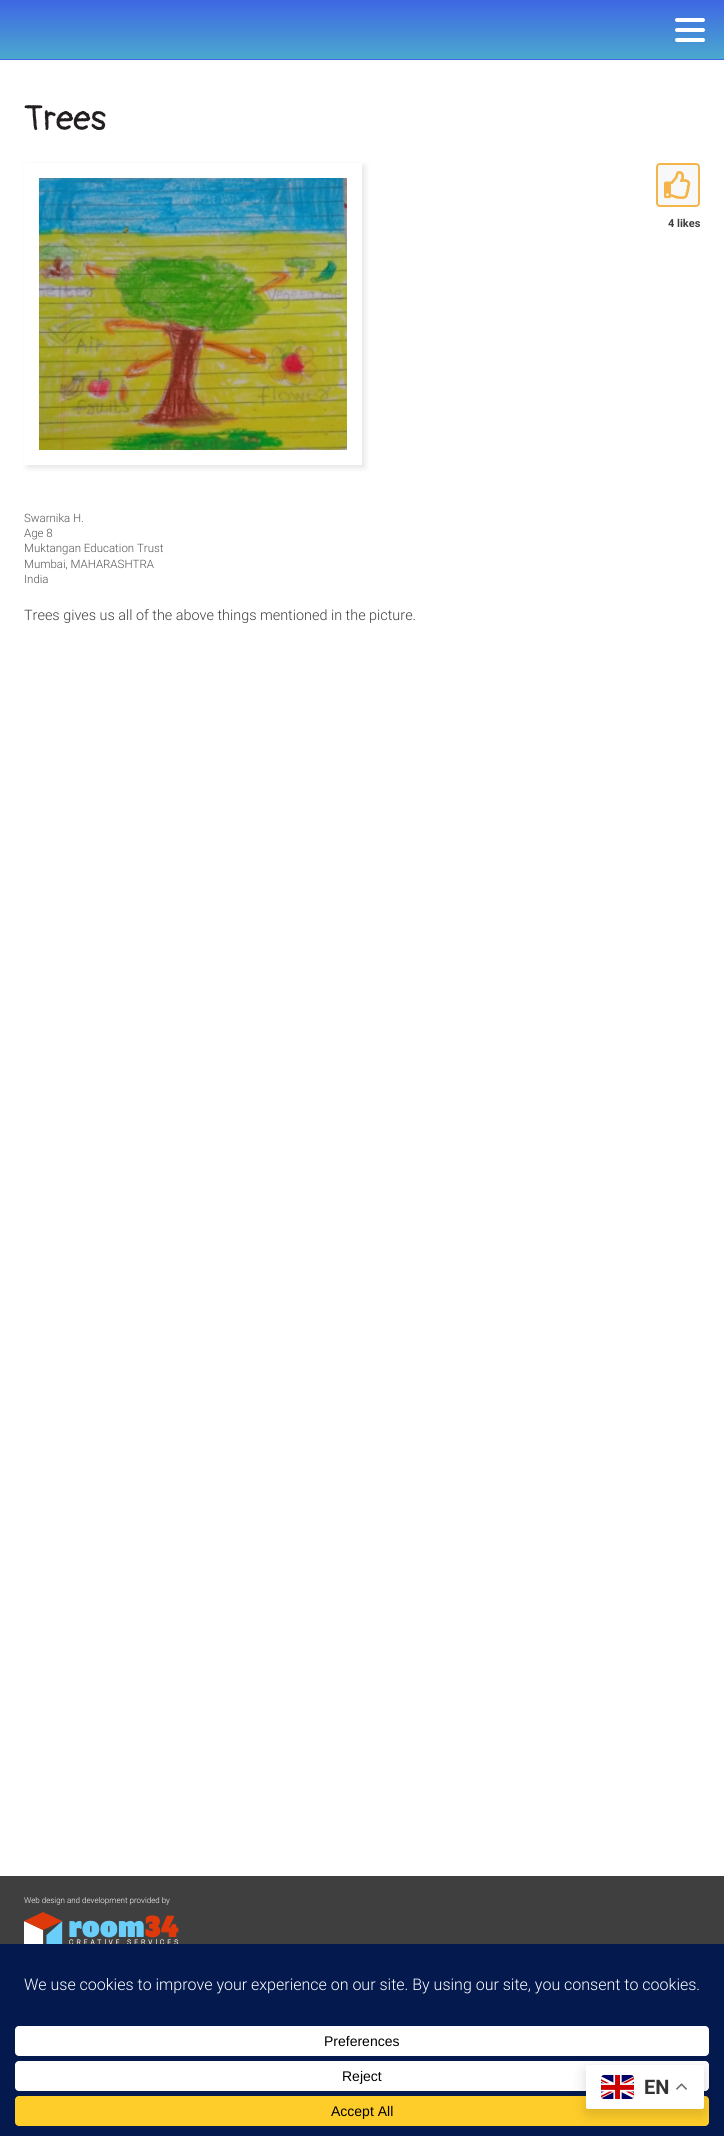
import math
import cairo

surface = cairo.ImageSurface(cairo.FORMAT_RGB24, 724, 2136)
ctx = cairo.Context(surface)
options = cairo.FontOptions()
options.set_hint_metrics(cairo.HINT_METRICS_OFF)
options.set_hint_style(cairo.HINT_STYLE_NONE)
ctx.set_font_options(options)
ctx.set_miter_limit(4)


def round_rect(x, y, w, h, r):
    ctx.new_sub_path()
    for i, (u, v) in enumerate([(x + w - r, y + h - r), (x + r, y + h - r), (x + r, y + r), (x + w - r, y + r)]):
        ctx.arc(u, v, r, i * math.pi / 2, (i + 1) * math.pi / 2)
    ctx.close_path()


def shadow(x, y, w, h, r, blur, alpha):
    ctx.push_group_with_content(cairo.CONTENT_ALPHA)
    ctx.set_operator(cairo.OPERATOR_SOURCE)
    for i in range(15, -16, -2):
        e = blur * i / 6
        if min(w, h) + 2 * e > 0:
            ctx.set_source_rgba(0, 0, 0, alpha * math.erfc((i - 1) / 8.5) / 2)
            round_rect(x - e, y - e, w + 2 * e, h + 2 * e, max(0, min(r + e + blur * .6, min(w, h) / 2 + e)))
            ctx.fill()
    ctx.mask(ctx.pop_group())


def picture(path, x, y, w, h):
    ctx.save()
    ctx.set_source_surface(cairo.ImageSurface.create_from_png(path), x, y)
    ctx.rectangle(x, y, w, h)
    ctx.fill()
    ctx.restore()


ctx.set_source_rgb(1, 1, 1)
ctx.paint()
gradient = cairo.LinearGradient(362, 0, 362, 59)
gradient.add_color_stop_rgba(0, 0.243, 0.4, 0.894, 1)
gradient.add_color_stop_rgba(1, 0.294, 0.663, 0.808, 1)
ctx.set_source(gradient)
ctx.rectangle(0, 0, 724, 59)
ctx.fill()
gradient = cairo.LinearGradient(362, 59, 362, 118)
gradient.add_color_stop_rgba(0, 0.243, 0.4, 0.894, 1)
gradient.add_color_stop_rgba(1, 0.294, 0.663, 0.808, 1)
ctx.set_source(gradient)
ctx.rectangle(0, 59, 724, 1)
ctx.fill()
ctx.set_source_rgb(1, 1, 1)
round_rect(675, 38, 30, 4, 2)
ctx.fill()
round_rect(675, 18, 30, 4, 2)
ctx.fill()
round_rect(675, 28, 30, 4, 2)
ctx.fill()
ctx.select_font_face("Pangolin")
ctx.set_font_size(35)
ctx.set_source_rgb(0.137, 0.122, 0.125)
ctx.move_to(24, 130)
ctx.show_text("Trees")
ctx.save()
ctx.set_fill_rule(cairo.FILL_RULE_EVEN_ODD)
ctx.new_path()
ctx.move_to(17, 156)
ctx.line_to(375, 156)
ctx.line_to(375, 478)
ctx.line_to(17, 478)
ctx.close_path()
ctx.move_to(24, 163)
ctx.line_to(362, 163)
ctx.line_to(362, 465)
ctx.line_to(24, 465)
ctx.close_path()
ctx.clip()
ctx.set_source_rgb(0, 0, 0)
shadow(27, 166, 338, 302, 0, 3, 0.1)
ctx.restore()
picture("img1.png", 39, 178, 308, 272)
ctx.set_source_rgb(0.969, 0.969, 0.969)
round_rect(657, 164, 42, 42, 3)
ctx.fill_preserve()
ctx.set_source_rgb(0.953, 0.706, 0.29)
ctx.stroke()
picture("img2.png", 664, 171, 27, 28)
ctx.select_font_face("Roboto", cairo.FONT_SLANT_NORMAL, cairo.FONT_WEIGHT_BOLD)
ctx.set_font_size(11)
ctx.set_source_rgb(0.247, 0.247, 0.247)
ctx.move_to(668, 227)
ctx.show_text("4 likes")
ctx.select_font_face("Roboto Light")
ctx.set_font_size(11.5)
ctx.set_source_rgb(0.333, 0.333, 0.333)
ctx.move_to(24, 522)
ctx.show_text("Swarnika H.")
ctx.move_to(24, 537)
ctx.show_text("Age 8")
ctx.move_to(24, 552)
ctx.show_text("Muktangan Education Trust")
ctx.move_to(24, 568)
ctx.show_text("Mumbai, MAHARASHTRA")
ctx.move_to(24, 583)
ctx.show_text("India")
ctx.set_font_size(14.4)
ctx.set_source_rgb(0.247, 0.247, 0.247)
ctx.move_to(24, 620)
ctx.show_text("Trees gives us all of the above things mentioned in the picture.")
ctx.rectangle(0, 1876, 724, 68)
ctx.fill()
ctx.set_font_size(8)
ctx.set_source_rgb(1, 1, 1)
ctx.move_to(24, 1903)
ctx.show_text("Web design and development provided by")
picture("img3.png", 24, 1912, 155, 32)
ctx.set_source_rgb(0.016, 0.098, 0.306)
ctx.rectangle(0, 1944, 724, 192)
ctx.fill()
ctx.set_font_size(16)
ctx.set_source_rgb(1, 1, 1)
ctx.move_to(24, 1990)
ctx.show_text("We use cookies to improve your experience on our site. By using our site, you consent to cookies.")
round_rect(15, 2026, 694, 30, 4)
ctx.fill()
ctx.select_font_face("Liberation Sans")
ctx.set_font_size(14)
ctx.set_source_rgb(0, 0, 0)
ctx.move_to(324, 2046)
ctx.show_text("Preferences")
ctx.set_source_rgb(1, 1, 1)
round_rect(15, 2061, 694, 30, 4)
ctx.fill()
ctx.set_source_rgb(0, 0, 0)
ctx.move_to(342, 2081)
ctx.show_text("Reject")
ctx.set_source_rgb(1, 0.804, 0.165)
round_rect(15, 2096, 694, 30, 4)
ctx.fill()
ctx.set_source_rgb(0, 0, 0)
ctx.move_to(331, 2116)
ctx.show_text("Accept All")
ctx.set_source_rgb(0, 0, 0)
shadow(586, 2070, 118, 44, 2, 7.5, 0.15)
ctx.set_source_rgb(1, 1, 1)
round_rect(586, 2065, 118, 44, 2)
ctx.fill()
picture("img4.png", 601, 2075, 33, 24)
ctx.select_font_face("Roboto", cairo.FONT_SLANT_NORMAL, cairo.FONT_WEIGHT_BOLD)
ctx.set_font_size(20)
ctx.set_source_rgb(0.2, 0.2, 0.2)
ctx.move_to(644, 2094)
ctx.show_text("EN")
picture("img5.png", 676, 2083, 11, 7)
surface.write_to_png("page.png")
